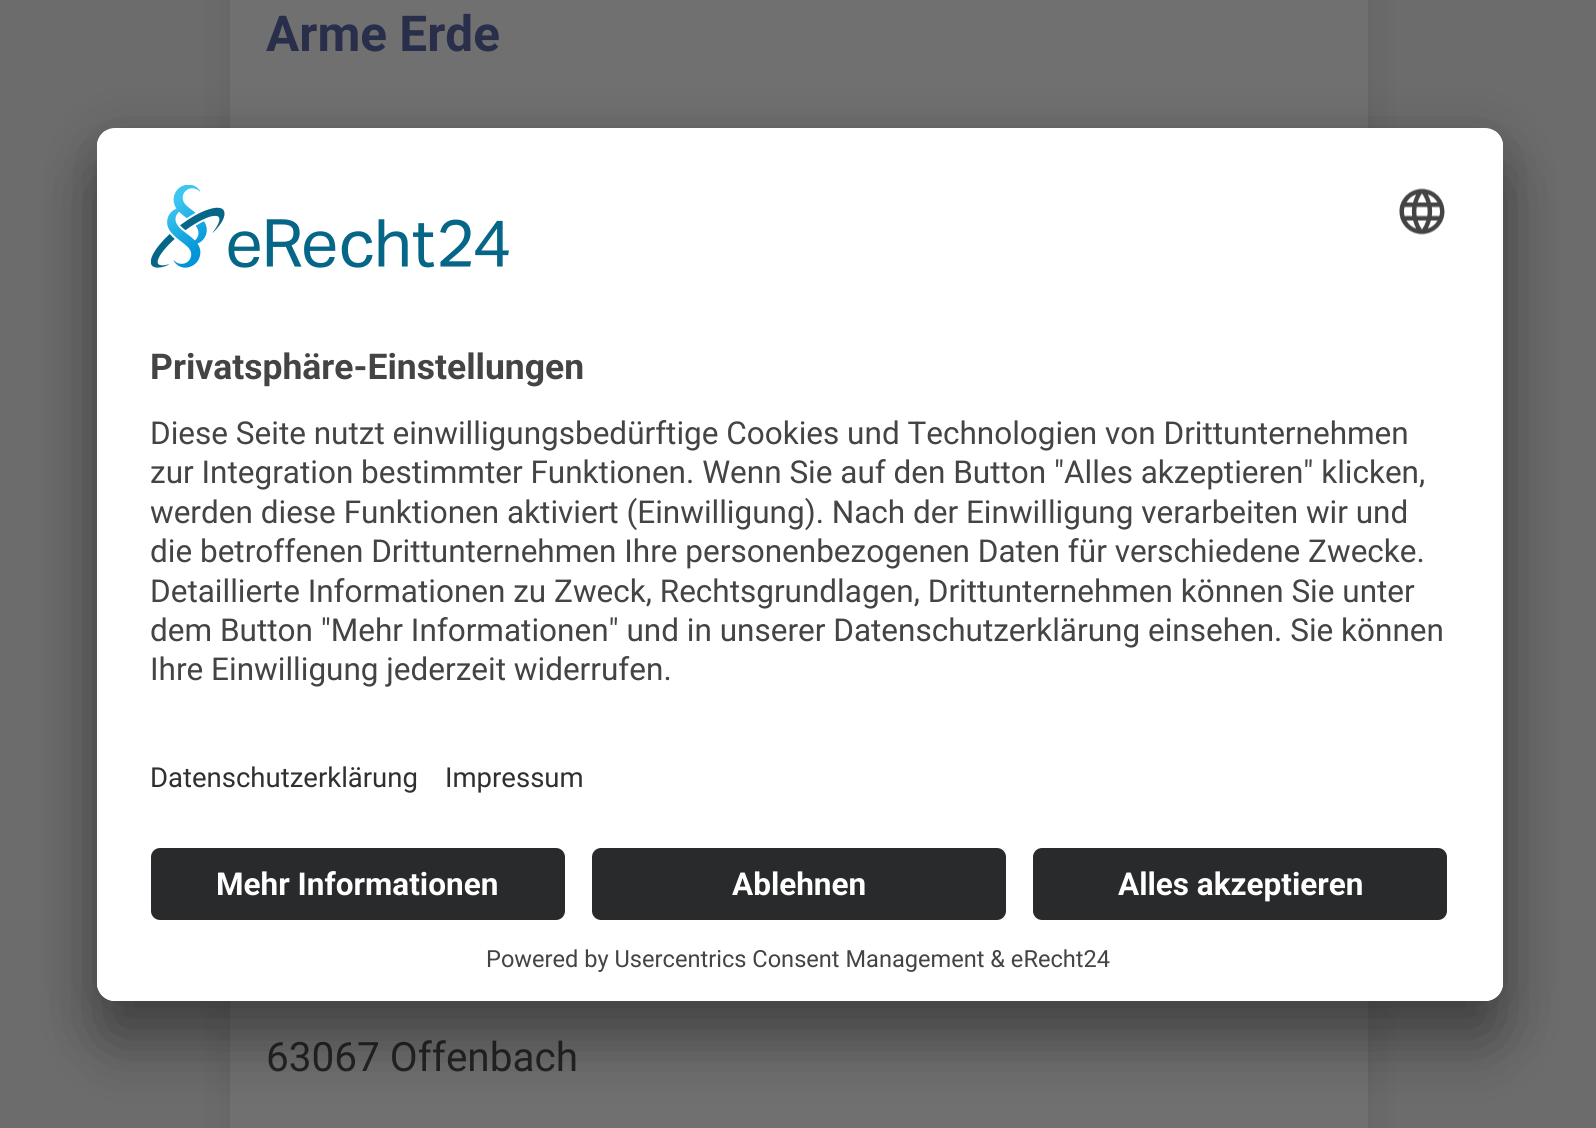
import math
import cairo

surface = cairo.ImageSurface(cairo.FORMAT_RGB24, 1596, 1128)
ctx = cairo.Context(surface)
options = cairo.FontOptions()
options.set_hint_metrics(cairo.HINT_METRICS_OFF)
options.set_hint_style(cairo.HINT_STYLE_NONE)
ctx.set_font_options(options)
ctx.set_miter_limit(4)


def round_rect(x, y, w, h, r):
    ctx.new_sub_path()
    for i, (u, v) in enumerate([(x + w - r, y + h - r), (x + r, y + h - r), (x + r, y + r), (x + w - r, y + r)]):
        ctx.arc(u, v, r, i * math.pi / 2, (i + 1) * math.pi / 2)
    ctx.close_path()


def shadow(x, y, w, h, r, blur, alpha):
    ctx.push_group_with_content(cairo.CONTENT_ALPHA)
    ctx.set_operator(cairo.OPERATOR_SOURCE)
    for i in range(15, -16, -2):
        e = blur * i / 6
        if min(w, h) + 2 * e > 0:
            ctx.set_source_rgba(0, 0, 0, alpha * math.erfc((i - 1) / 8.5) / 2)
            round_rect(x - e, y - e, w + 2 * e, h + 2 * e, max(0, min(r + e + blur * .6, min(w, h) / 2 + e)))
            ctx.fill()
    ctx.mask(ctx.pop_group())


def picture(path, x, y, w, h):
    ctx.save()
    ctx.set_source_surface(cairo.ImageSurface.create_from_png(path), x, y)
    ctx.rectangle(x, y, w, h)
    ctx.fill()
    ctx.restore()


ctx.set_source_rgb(0.424, 0.424, 0.424)
ctx.paint()
ctx.set_source_rgb(0.141, 0.141, 0.141)
shadow(230, -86, 1138, 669, 32, 18, 0.15)
ctx.set_source_rgb(0.439, 0.439, 0.439)
ctx.rectangle(230, 0, 1138, 128)
ctx.fill()
ctx.select_font_face("Roboto", cairo.FONT_SLANT_NORMAL, cairo.FONT_WEIGHT_BOLD)
ctx.set_font_size(49.5)
ctx.set_source_rgb(0.161, 0.184, 0.294)
ctx.move_to(266, 51)
ctx.show_text("Arme Erde")
ctx.set_source_rgb(0.141, 0.141, 0.141)
shadow(230, 621, 1138, 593, 32, 18, 0.15)
ctx.set_source_rgb(0.439, 0.439, 0.439)
ctx.rectangle(230, 1001, 1138, 127)
ctx.fill()
ctx.select_font_face("Roboto")
ctx.set_font_size(40.5)
ctx.set_source_rgb(0.141, 0.141, 0.141)
ctx.move_to(266, 1071)
ctx.show_text("63067 Offenbach")
ctx.set_source_rgb(0, 0, 0)
shadow(97, 173, 1406, 873, 18, 31.5, 0.3)
shadow(97, 140, 1406, 873, 18, 29, 0.22)
ctx.set_source_rgb(1, 1, 1)
round_rect(97, 128, 1406, 873, 18)
ctx.fill()
ctx.save()
round_rect(97, 128, 1406, 873, 18)
ctx.clip()
ctx.new_path()
ctx.move_to(115, 128)
ctx.line_to(1485, 128)
ctx.curve_to(1495, 128, 1503, 136, 1503, 146)
ctx.line_to(1503, 830)
ctx.line_to(97, 830)
ctx.line_to(97, 146)
ctx.curve_to(97, 136, 105, 128, 115, 128)
ctx.close_path()
ctx.clip()
ctx.rectangle(97, 131, 1406, 699)
ctx.fill()
ctx.restore()
picture("img1.png", 151, 185, 358, 83)
picture("img2.png", 1399, 188, 46, 47)
ctx.select_font_face("Roboto", cairo.FONT_SLANT_NORMAL, cairo.FONT_WEIGHT_BOLD)
ctx.set_font_size(35.5)
ctx.set_source_rgb(0.267, 0.267, 0.267)
ctx.move_to(150, 379)
ctx.show_text("Privatsphäre-Einstellungen")
ctx.select_font_face("Roboto")
ctx.set_font_size(31.5)
ctx.move_to(150, 444)
ctx.show_text("Diese Seite nutzt einwilligungsbedürftige Cookies und Technologien von Drittunternehmen")
ctx.move_to(150, 483)
ctx.show_text("zur Integration bestimmter Funktionen. Wenn Sie auf den Button \"Alles akzeptieren\" klicken,")
ctx.save()
ctx.rectangle(151, 405, 1298, 295)
ctx.clip()
ctx.move_to(150, 523)
ctx.show_text("werden diese Funktionen aktiviert (Einwilligung). Nach der Einwilligung verarbeiten wir und")
ctx.restore()
ctx.move_to(150, 562)
ctx.show_text("die betroffenen Drittunternehmen Ihre personenbezogenen Daten für verschiedene Zwecke.")
ctx.move_to(150, 602)
ctx.show_text("Detaillierte Informationen zu Zweck, Rechtsgrundlagen, Drittunternehmen können Sie unter")
ctx.move_to(150, 641)
ctx.show_text("dem Button \"Mehr Informationen\" und in unserer Datenschutzerklärung einsehen. Sie können")
ctx.move_to(150, 680)
ctx.show_text("Ihre Einwilligung jederzeit widerrufen.")
ctx.set_font_size(27.5)
ctx.set_source_rgb(0.188, 0.188, 0.188)
ctx.move_to(150, 787)
ctx.show_text("Datenschutzerklärung")
ctx.move_to(445, 787)
ctx.show_text("Impressum")
ctx.set_source_rgb(1, 1, 1)
ctx.new_path()
ctx.move_to(97, 830)
ctx.line_to(1503, 830)
ctx.line_to(1503, 983)
ctx.curve_to(1503, 993, 1495, 1001, 1485, 1001)
ctx.line_to(115, 1001)
ctx.curve_to(105, 1001, 97, 993, 97, 983)
ctx.close_path()
ctx.fill()
ctx.set_source_rgb(0.161, 0.165, 0.169)
round_rect(151, 848, 414, 72, 9)
ctx.fill()
ctx.select_font_face("Roboto", cairo.FONT_SLANT_NORMAL, cairo.FONT_WEIGHT_BOLD)
ctx.set_font_size(31.5)
ctx.set_source_rgb(1, 1, 1)
ctx.move_to(216, 895)
ctx.show_text("Mehr Informationen")
ctx.set_source_rgb(0.161, 0.165, 0.169)
round_rect(592, 848, 414, 72, 9)
ctx.fill()
ctx.set_source_rgb(1, 1, 1)
ctx.move_to(732, 895)
ctx.show_text("Ablehnen")
ctx.set_source_rgb(0.161, 0.165, 0.169)
round_rect(1033, 848, 414, 72, 9)
ctx.fill()
ctx.set_source_rgb(1, 1, 1)
ctx.move_to(1118, 895)
ctx.show_text("Alles akzeptieren")
ctx.select_font_face("Roboto")
ctx.set_font_size(23.6)
ctx.set_source_rgb(0.267, 0.267, 0.267)
ctx.move_to(486, 967)
ctx.show_text("Powered by Usercentrics Consent Management & eRecht24")
surface.write_to_png("page.png")
